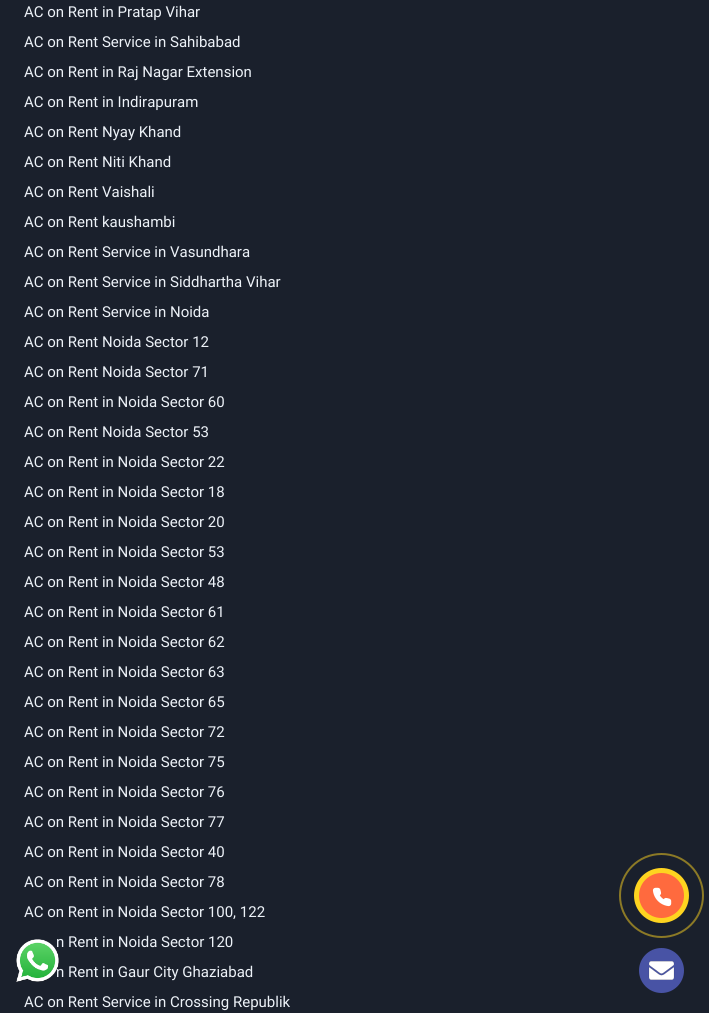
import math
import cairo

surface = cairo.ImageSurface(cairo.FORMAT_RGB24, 709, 1013)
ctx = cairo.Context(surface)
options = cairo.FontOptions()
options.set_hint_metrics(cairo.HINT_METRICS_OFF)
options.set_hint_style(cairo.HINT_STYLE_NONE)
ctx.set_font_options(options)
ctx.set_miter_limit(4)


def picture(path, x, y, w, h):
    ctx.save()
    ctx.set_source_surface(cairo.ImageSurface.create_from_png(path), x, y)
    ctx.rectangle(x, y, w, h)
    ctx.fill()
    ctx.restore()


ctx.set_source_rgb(0.102, 0.125, 0.173)
ctx.paint()
ctx.select_font_face("Roboto")
ctx.set_font_size(15)
ctx.set_source_rgb(0.929, 0.949, 0.969)
ctx.move_to(24, 17)
ctx.show_text("AC on Rent in Pratap Vihar")
ctx.move_to(24, 47)
ctx.show_text("AC on Rent Service in Sahibabad")
ctx.move_to(24, 77)
ctx.show_text("AC on Rent in Raj Nagar Extension")
ctx.move_to(24, 107)
ctx.show_text("AC on Rent in Indirapuram")
ctx.move_to(24, 137)
ctx.show_text("AC on Rent Nyay Khand")
ctx.move_to(24, 167)
ctx.show_text("AC on Rent Niti Khand")
ctx.move_to(24, 197)
ctx.show_text("AC on Rent Vaishali")
ctx.move_to(24, 227)
ctx.show_text("AC on Rent kaushambi")
ctx.move_to(24, 257)
ctx.show_text("AC on Rent Service in Vasundhara")
ctx.move_to(24, 287)
ctx.show_text("AC on Rent Service in Siddhartha Vihar")
ctx.move_to(24, 317)
ctx.show_text("AC on Rent Service in Noida")
ctx.move_to(24, 347)
ctx.show_text("AC on Rent Noida Sector 12")
ctx.move_to(24, 377)
ctx.show_text("AC on Rent Noida Sector 71")
ctx.move_to(24, 407)
ctx.show_text("AC on Rent in Noida Sector 60")
ctx.move_to(24, 437)
ctx.show_text("AC on Rent Noida Sector 53")
ctx.move_to(24, 467)
ctx.show_text("AC on Rent in Noida Sector 22")
ctx.move_to(24, 497)
ctx.show_text("AC on Rent in Noida Sector 18")
ctx.move_to(24, 527)
ctx.show_text("AC on Rent in Noida Sector 20")
ctx.move_to(24, 557)
ctx.show_text("AC on Rent in Noida Sector 53")
ctx.move_to(24, 587)
ctx.show_text("AC on Rent in Noida Sector 48")
ctx.move_to(24, 617)
ctx.show_text("AC on Rent in Noida Sector 61")
ctx.move_to(24, 647)
ctx.show_text("AC on Rent in Noida Sector 62")
ctx.move_to(24, 677)
ctx.show_text("AC on Rent in Noida Sector 63")
ctx.move_to(24, 707)
ctx.show_text("AC on Rent in Noida Sector 65")
ctx.move_to(24, 737)
ctx.show_text("AC on Rent in Noida Sector 72")
ctx.move_to(24, 767)
ctx.show_text("AC on Rent in Noida Sector 75")
ctx.move_to(24, 797)
ctx.show_text("AC on Rent in Noida Sector 76")
ctx.move_to(24, 827)
ctx.show_text("AC on Rent in Noida Sector 77")
ctx.move_to(24, 857)
ctx.show_text("AC on Rent in Noida Sector 40")
ctx.move_to(24, 887)
ctx.show_text("AC on Rent in Noida Sector 78")
ctx.move_to(24, 917)
ctx.show_text("AC on Rent in Noida Sector 100, 122")
ctx.move_to(56, 947)
ctx.show_text("n Rent in Noida Sector 120")
ctx.move_to(56, 977)
ctx.show_text("n Rent in Gaur City Ghaziabad")
ctx.move_to(24, 1007)
ctx.show_text("AC on Rent Service in Crossing Republik")
ctx.new_path()
ctx.arc(661.5, 895.5, 41.5, 0, 2 * math.pi)
ctx.set_source_rgb(0.549, 0.478, 0.149)
ctx.stroke()
ctx.set_source_rgb(0.996, 0.831, 0.125)
ctx.arc(661.5, 895.5, 27.5, 0, 2 * math.pi)
ctx.fill()
ctx.set_source_rgb(1, 0.416, 0.243)
ctx.arc(661.5, 895.5, 22.5, 0, 2 * math.pi)
ctx.fill()
picture("img1.png", 652, 887, 20, 20)
picture("img2.png", 16, 939, 43, 43)
ctx.set_source_rgb(0.282, 0.325, 0.647)
ctx.arc(661.5, 970.5, 22.5, 0, 2 * math.pi)
ctx.fill()
picture("img3.png", 648, 961, 27, 19)
surface.write_to_png("page.png")
